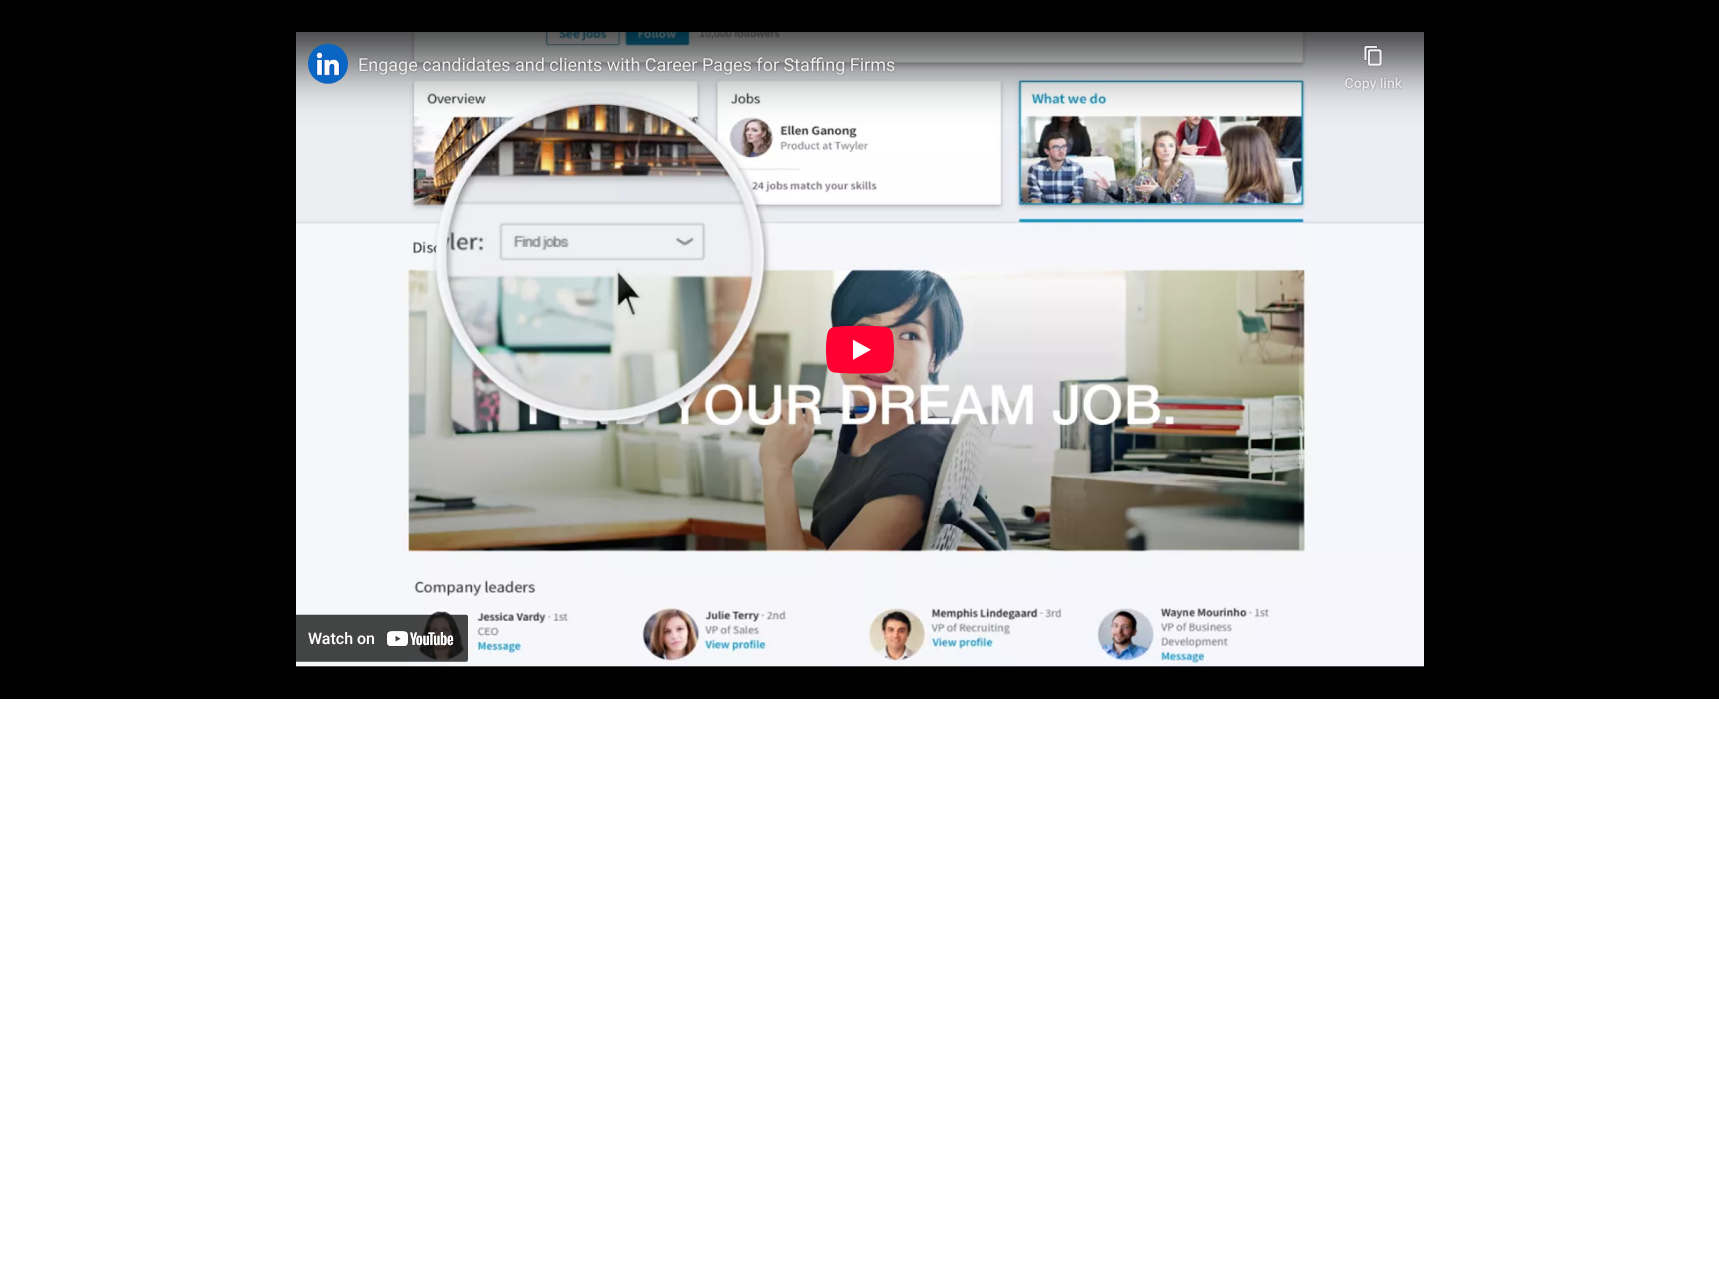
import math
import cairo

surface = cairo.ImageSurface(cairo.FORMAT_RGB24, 1719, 1272)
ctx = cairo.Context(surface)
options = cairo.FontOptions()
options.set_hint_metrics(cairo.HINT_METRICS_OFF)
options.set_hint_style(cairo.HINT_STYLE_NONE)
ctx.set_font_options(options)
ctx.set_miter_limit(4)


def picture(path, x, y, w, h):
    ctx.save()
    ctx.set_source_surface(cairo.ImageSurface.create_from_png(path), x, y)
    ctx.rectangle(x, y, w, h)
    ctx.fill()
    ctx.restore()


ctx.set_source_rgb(1, 1, 1)
ctx.paint()
ctx.set_source_rgb(0, 0, 0)
ctx.rectangle(0, 0, 1719, 699)
ctx.fill()
picture("img1.png", 296, 32, 1128, 635)
surface.write_to_png("page.png")
